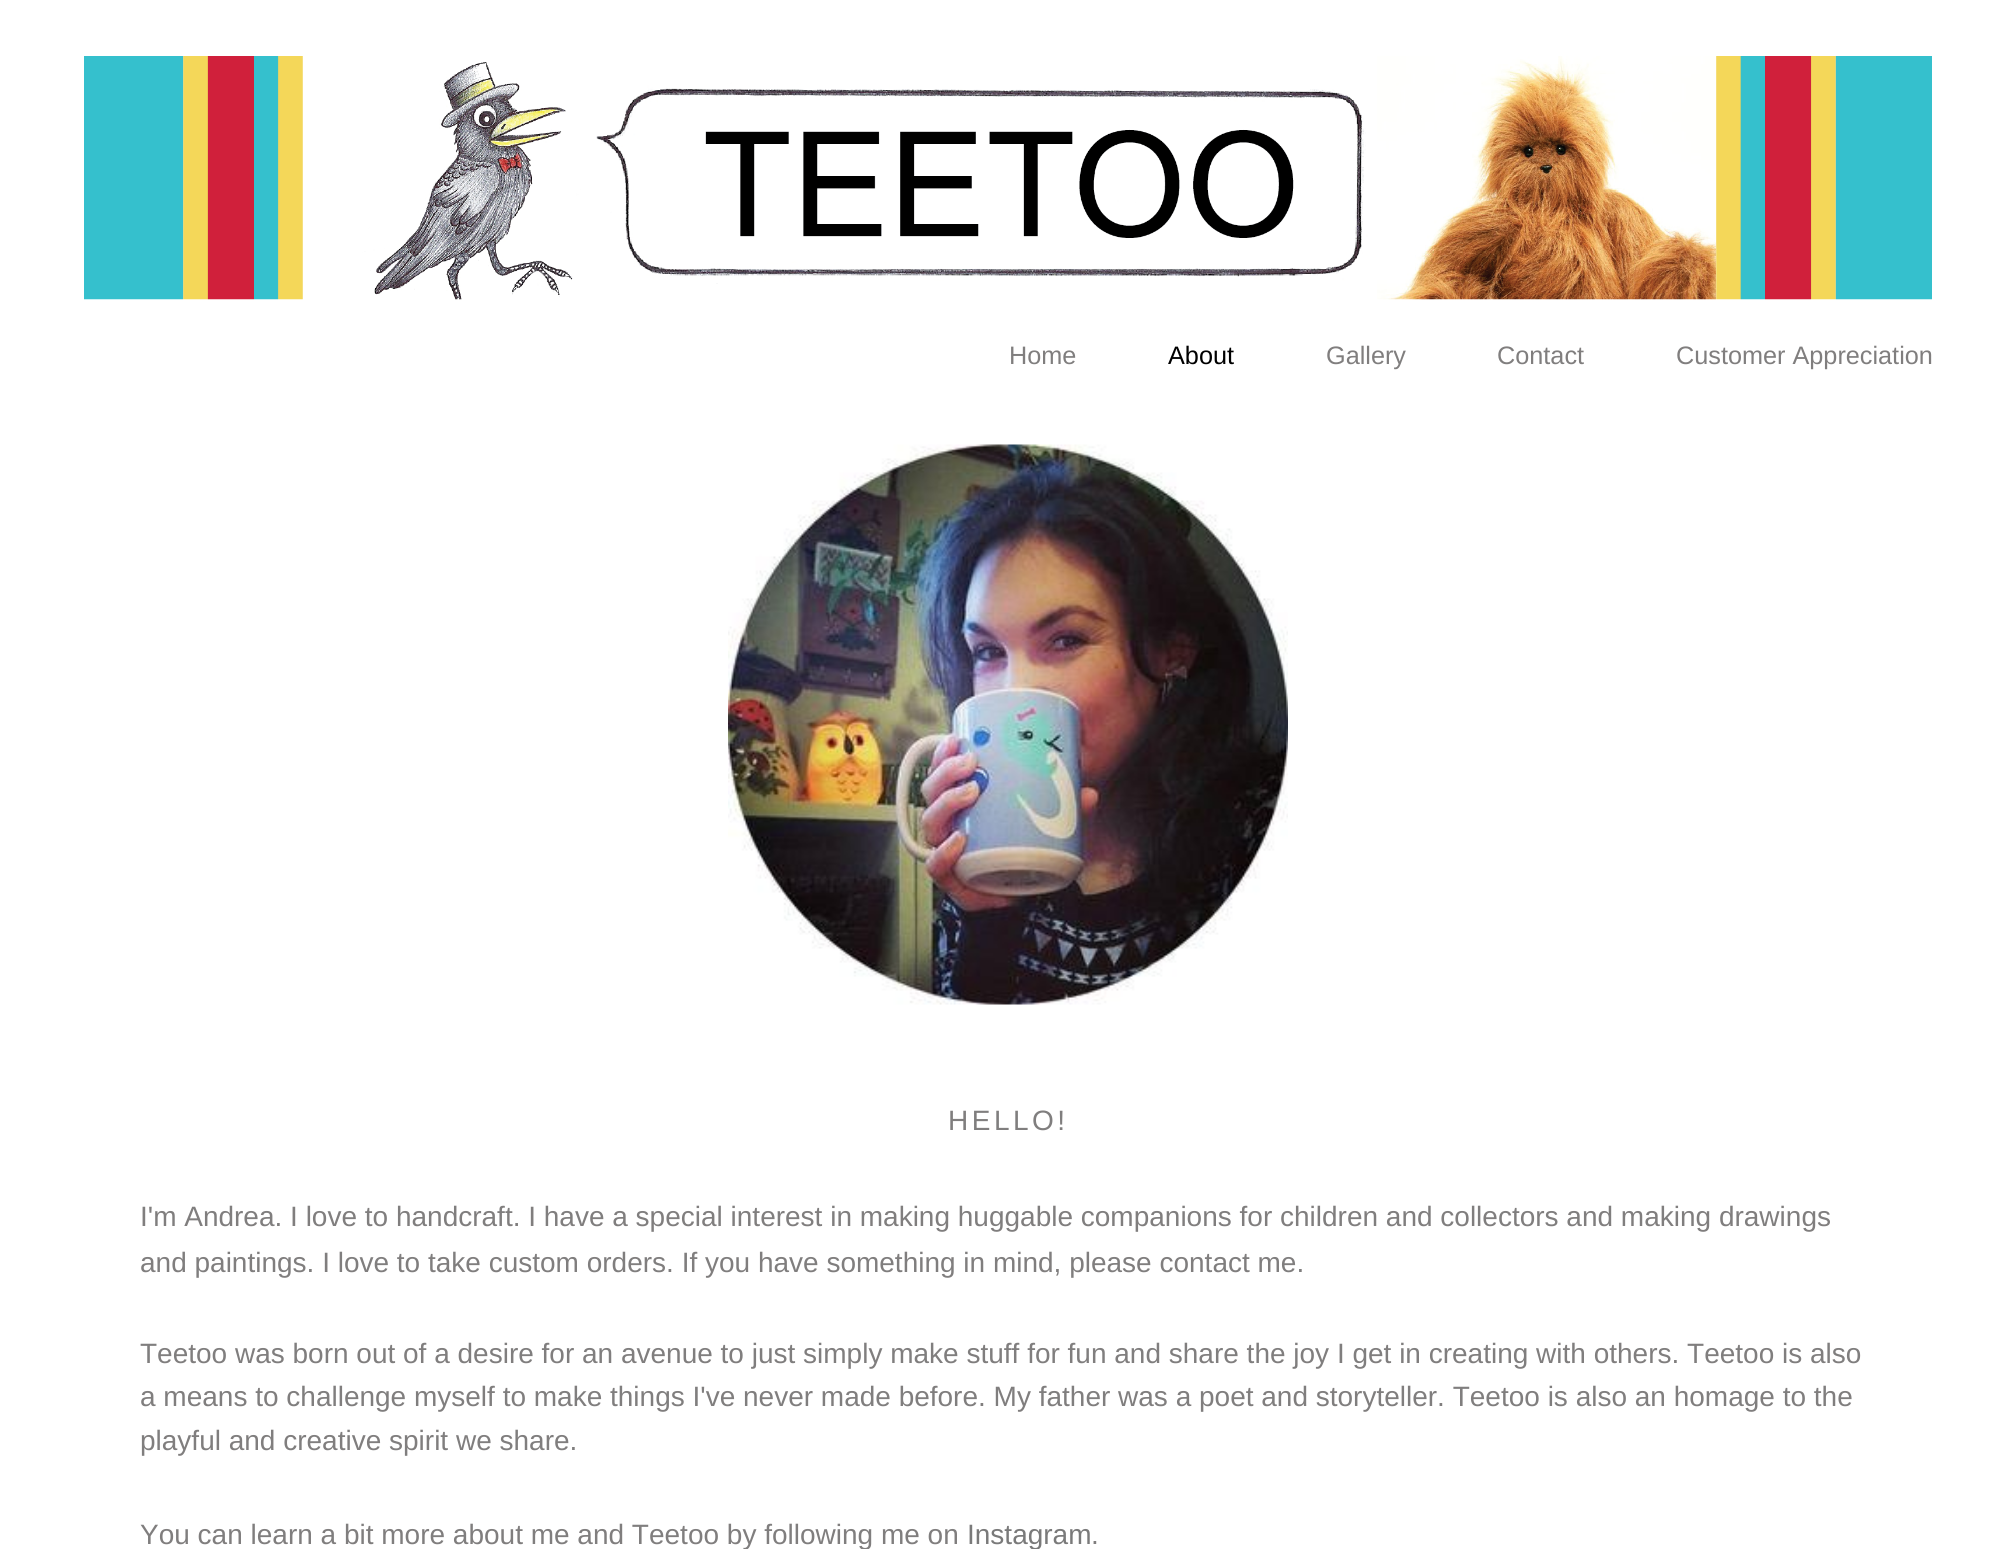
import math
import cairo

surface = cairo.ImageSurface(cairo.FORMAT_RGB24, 2015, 1549)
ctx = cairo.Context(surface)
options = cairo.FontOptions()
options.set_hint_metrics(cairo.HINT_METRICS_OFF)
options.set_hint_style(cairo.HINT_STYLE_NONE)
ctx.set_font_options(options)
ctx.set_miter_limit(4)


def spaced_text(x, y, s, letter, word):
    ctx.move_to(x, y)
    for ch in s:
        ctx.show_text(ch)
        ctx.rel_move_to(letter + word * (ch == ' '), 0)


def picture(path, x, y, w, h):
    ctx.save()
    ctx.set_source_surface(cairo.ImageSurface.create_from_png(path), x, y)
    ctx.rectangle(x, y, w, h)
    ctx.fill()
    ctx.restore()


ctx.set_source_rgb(1, 1, 1)
ctx.paint()
picture("img1.png", 84, 56, 1848, 244)
ctx.select_font_face("Liberation Sans")
ctx.set_font_size(25.25)
ctx.set_source_rgb(0.502, 0.494, 0.494)
ctx.move_to(1009, 364)
ctx.show_text("Home")
ctx.set_source_rgb(0, 0, 0)
ctx.move_to(1168, 364)
ctx.show_text("About")
ctx.set_source_rgb(0.502, 0.494, 0.494)
ctx.move_to(1326, 364)
ctx.show_text("Gallery")
ctx.move_to(1497, 364)
ctx.show_text("Contact")
ctx.move_to(1676, 364)
ctx.show_text("Customer Appreciation")
picture("img2.png", 728, 444, 560, 561)
ctx.set_font_size(28)
spaced_text(948, 1130, "HELLO!", 3.5, 0)
ctx.move_to(140, 1226)
ctx.show_text("I'm Andrea. I love to handcraft. I have a special interest in making huggable companions for children and collectors and making drawings")
ctx.move_to(140, 1272)
ctx.show_text("and paintings. I love to take custom orders. If you have something in mind, please contact me.")
ctx.move_to(140, 1363)
ctx.show_text("Teetoo was born out of a desire for an avenue to just simply make stuff for fun and share the joy I get in creating with others. Teetoo is also")
ctx.move_to(140, 1406)
ctx.show_text("a means to challenge myself to make things I've never made before. My father was a poet and storyteller. Teetoo is also an homage to the")
ctx.move_to(140, 1450)
ctx.show_text("playful and creative spirit we share.")
ctx.move_to(140, 1544)
ctx.show_text("You can learn a bit more about me and Teetoo by following me on")
ctx.set_source_rgb(0.478, 0.478, 0.478)
ctx.move_to(967, 1544)
ctx.show_text("Instagram")
ctx.set_source_rgb(0.502, 0.494, 0.494)
ctx.move_to(1091, 1544)
ctx.show_text(".")
surface.write_to_png("page.png")
